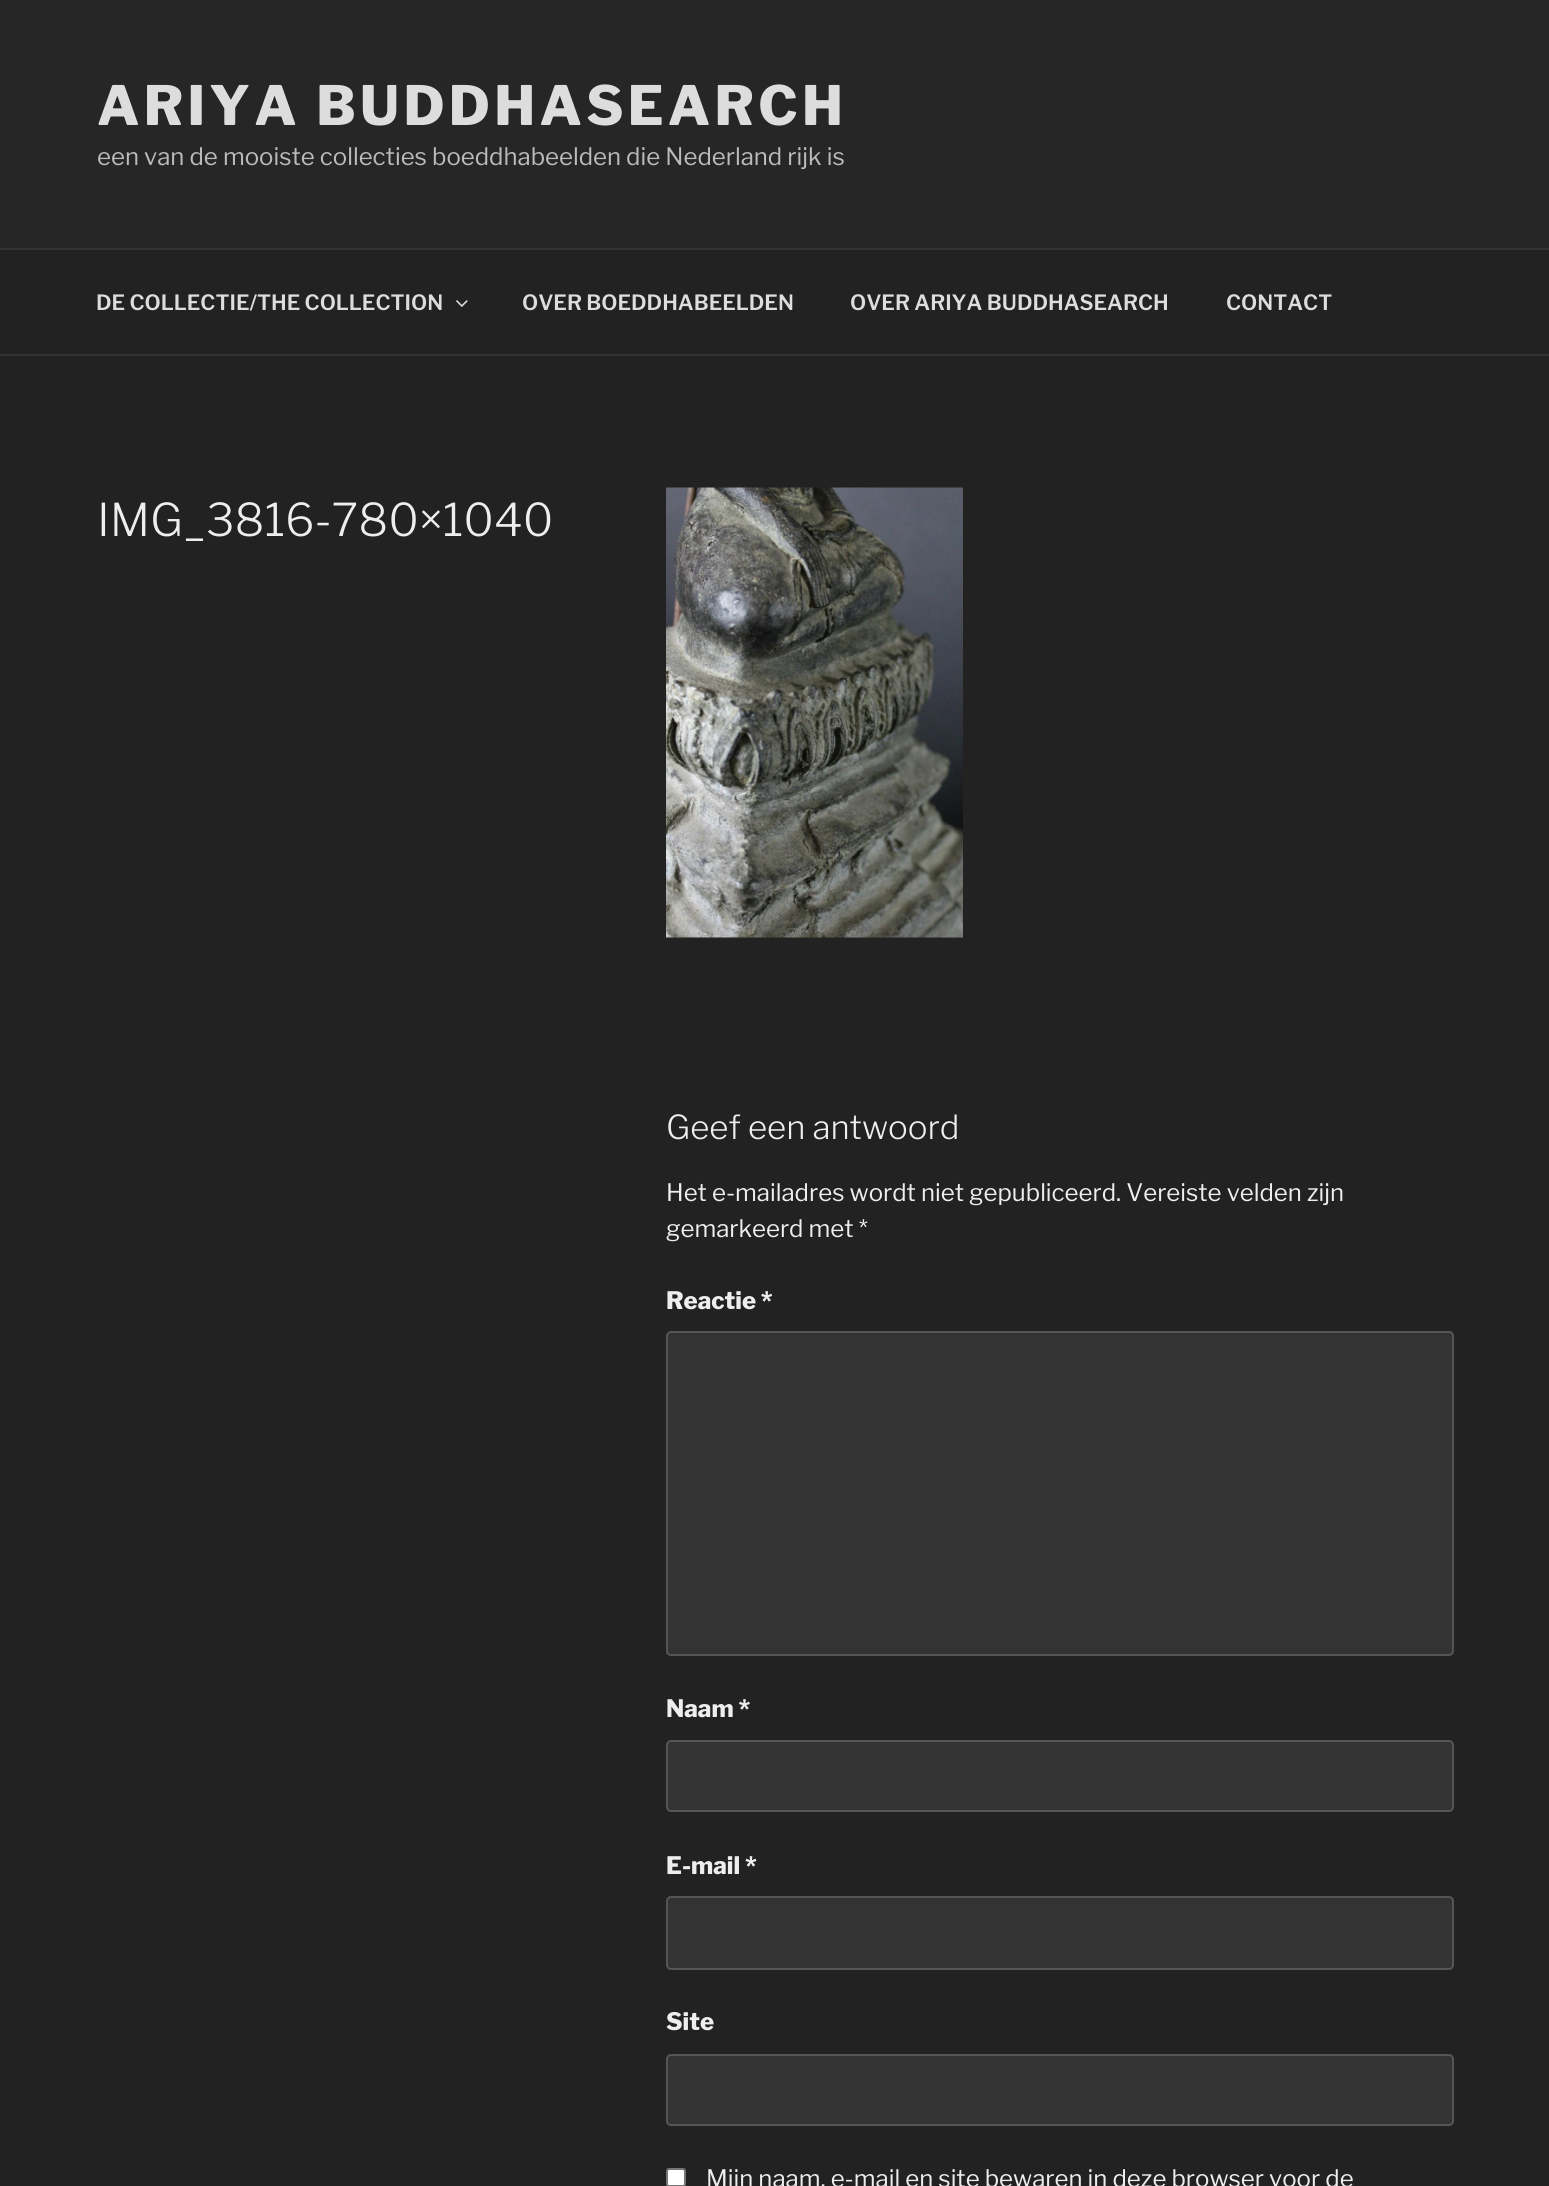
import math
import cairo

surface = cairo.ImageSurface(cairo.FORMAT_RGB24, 1549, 2186)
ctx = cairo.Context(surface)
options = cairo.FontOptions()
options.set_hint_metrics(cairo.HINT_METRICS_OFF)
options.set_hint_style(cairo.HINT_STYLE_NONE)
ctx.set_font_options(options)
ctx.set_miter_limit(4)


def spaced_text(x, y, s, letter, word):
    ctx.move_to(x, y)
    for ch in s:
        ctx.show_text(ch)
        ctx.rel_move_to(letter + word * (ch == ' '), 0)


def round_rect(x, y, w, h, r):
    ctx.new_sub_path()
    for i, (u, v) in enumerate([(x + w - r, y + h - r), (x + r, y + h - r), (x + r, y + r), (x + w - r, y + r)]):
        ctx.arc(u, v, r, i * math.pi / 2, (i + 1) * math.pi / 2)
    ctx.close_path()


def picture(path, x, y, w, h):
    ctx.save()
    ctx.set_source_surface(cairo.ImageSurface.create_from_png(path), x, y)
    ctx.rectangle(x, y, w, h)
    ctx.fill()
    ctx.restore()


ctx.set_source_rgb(0.133, 0.133, 0.133)
ctx.paint()
ctx.set_source_rgb(0.149, 0.149, 0.149)
ctx.rectangle(0, 0, 1549, 248)
ctx.fill()
ctx.select_font_face("Libre Franklin ExtraBold")
ctx.set_font_size(54)
ctx.set_source_rgb(0.867, 0.867, 0.867)
spaced_text(97, 125, "ARIYA BUDDHASEARCH", 4.3, 0)
ctx.select_font_face("Libre Franklin")
ctx.set_font_size(24)
ctx.set_source_rgb(0.733, 0.733, 0.733)
ctx.move_to(97, 165)
ctx.show_text("een van de mooiste collecties boeddhabeelden die Nederland rijk is")
ctx.set_source_rgb(0.2, 0.2, 0.2)
ctx.rectangle(0, 248, 1549, 2)
ctx.fill()
ctx.rectangle(0, 354, 1549, 2)
ctx.fill()
ctx.select_font_face("Libre Franklin SemiBold")
ctx.set_font_size(21)
ctx.set_source_rgb(0.867, 0.867, 0.867)
ctx.move_to(96, 310)
ctx.show_text("DE COLLECTIE/THE COLLECTION")
picture("img1.png", 456, 300, 12, 7)
ctx.move_to(522, 310)
ctx.show_text("OVER BOEDDHABEELDEN")
ctx.move_to(850, 310)
ctx.show_text("OVER ARIYA BUDDHASEARCH")
ctx.move_to(1226, 310)
ctx.show_text("CONTACT")
ctx.select_font_face("Libre Franklin Light")
ctx.set_font_size(45)
ctx.set_source_rgb(0.933, 0.933, 0.933)
ctx.move_to(97, 536)
ctx.show_text("IMG_3816-780×1040")
picture("img2.png", 666, 487, 297, 451)
ctx.set_font_size(33)
ctx.move_to(666, 1139)
ctx.show_text("Geef een antwoord")
ctx.select_font_face("Libre Franklin")
ctx.set_font_size(24)
ctx.move_to(666, 1201)
ctx.show_text("Het e-mailadres wordt niet gepubliceerd. Vereiste velden zijn")
ctx.move_to(666, 1237)
ctx.show_text("gemarkeerd met *")
ctx.select_font_face("Libre Franklin ExtraBold")
ctx.move_to(666, 1309)
ctx.show_text("Reactie *")
ctx.set_source_rgb(0.2, 0.2, 0.2)
round_rect(667, 1332, 786, 323, 4)
ctx.fill_preserve()
ctx.set_source_rgb(0.333, 0.333, 0.333)
ctx.stroke()
ctx.set_source_rgb(0.933, 0.933, 0.933)
ctx.move_to(666, 1717)
ctx.show_text("Naam *")
ctx.set_source_rgb(0.2, 0.2, 0.2)
round_rect(667, 1741, 786, 70, 4)
ctx.fill_preserve()
ctx.set_source_rgb(0.333, 0.333, 0.333)
ctx.stroke()
ctx.set_source_rgb(0.933, 0.933, 0.933)
ctx.move_to(666, 1874)
ctx.show_text("E-mail *")
ctx.set_source_rgb(0.2, 0.2, 0.2)
round_rect(667, 1897, 786, 72, 4)
ctx.fill_preserve()
ctx.set_source_rgb(0.333, 0.333, 0.333)
ctx.stroke()
ctx.set_source_rgb(0.933, 0.933, 0.933)
ctx.move_to(666, 2030)
ctx.show_text("Site")
ctx.set_source_rgb(0.2, 0.2, 0.2)
round_rect(667, 2055, 786, 70, 4)
ctx.fill_preserve()
ctx.set_source_rgb(0.333, 0.333, 0.333)
ctx.stroke()
ctx.set_source_rgb(1, 1, 1)
round_rect(667, 2169, 18, 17, 2)
ctx.fill_preserve()
ctx.set_source_rgb(0.463, 0.463, 0.463)
ctx.stroke()
ctx.select_font_face("Libre Franklin")
ctx.set_source_rgb(0.933, 0.933, 0.933)
ctx.move_to(706, 2187)
ctx.show_text("Mijn naam, e-mail en site bewaren in deze browser voor de")
surface.write_to_png("page.png")
